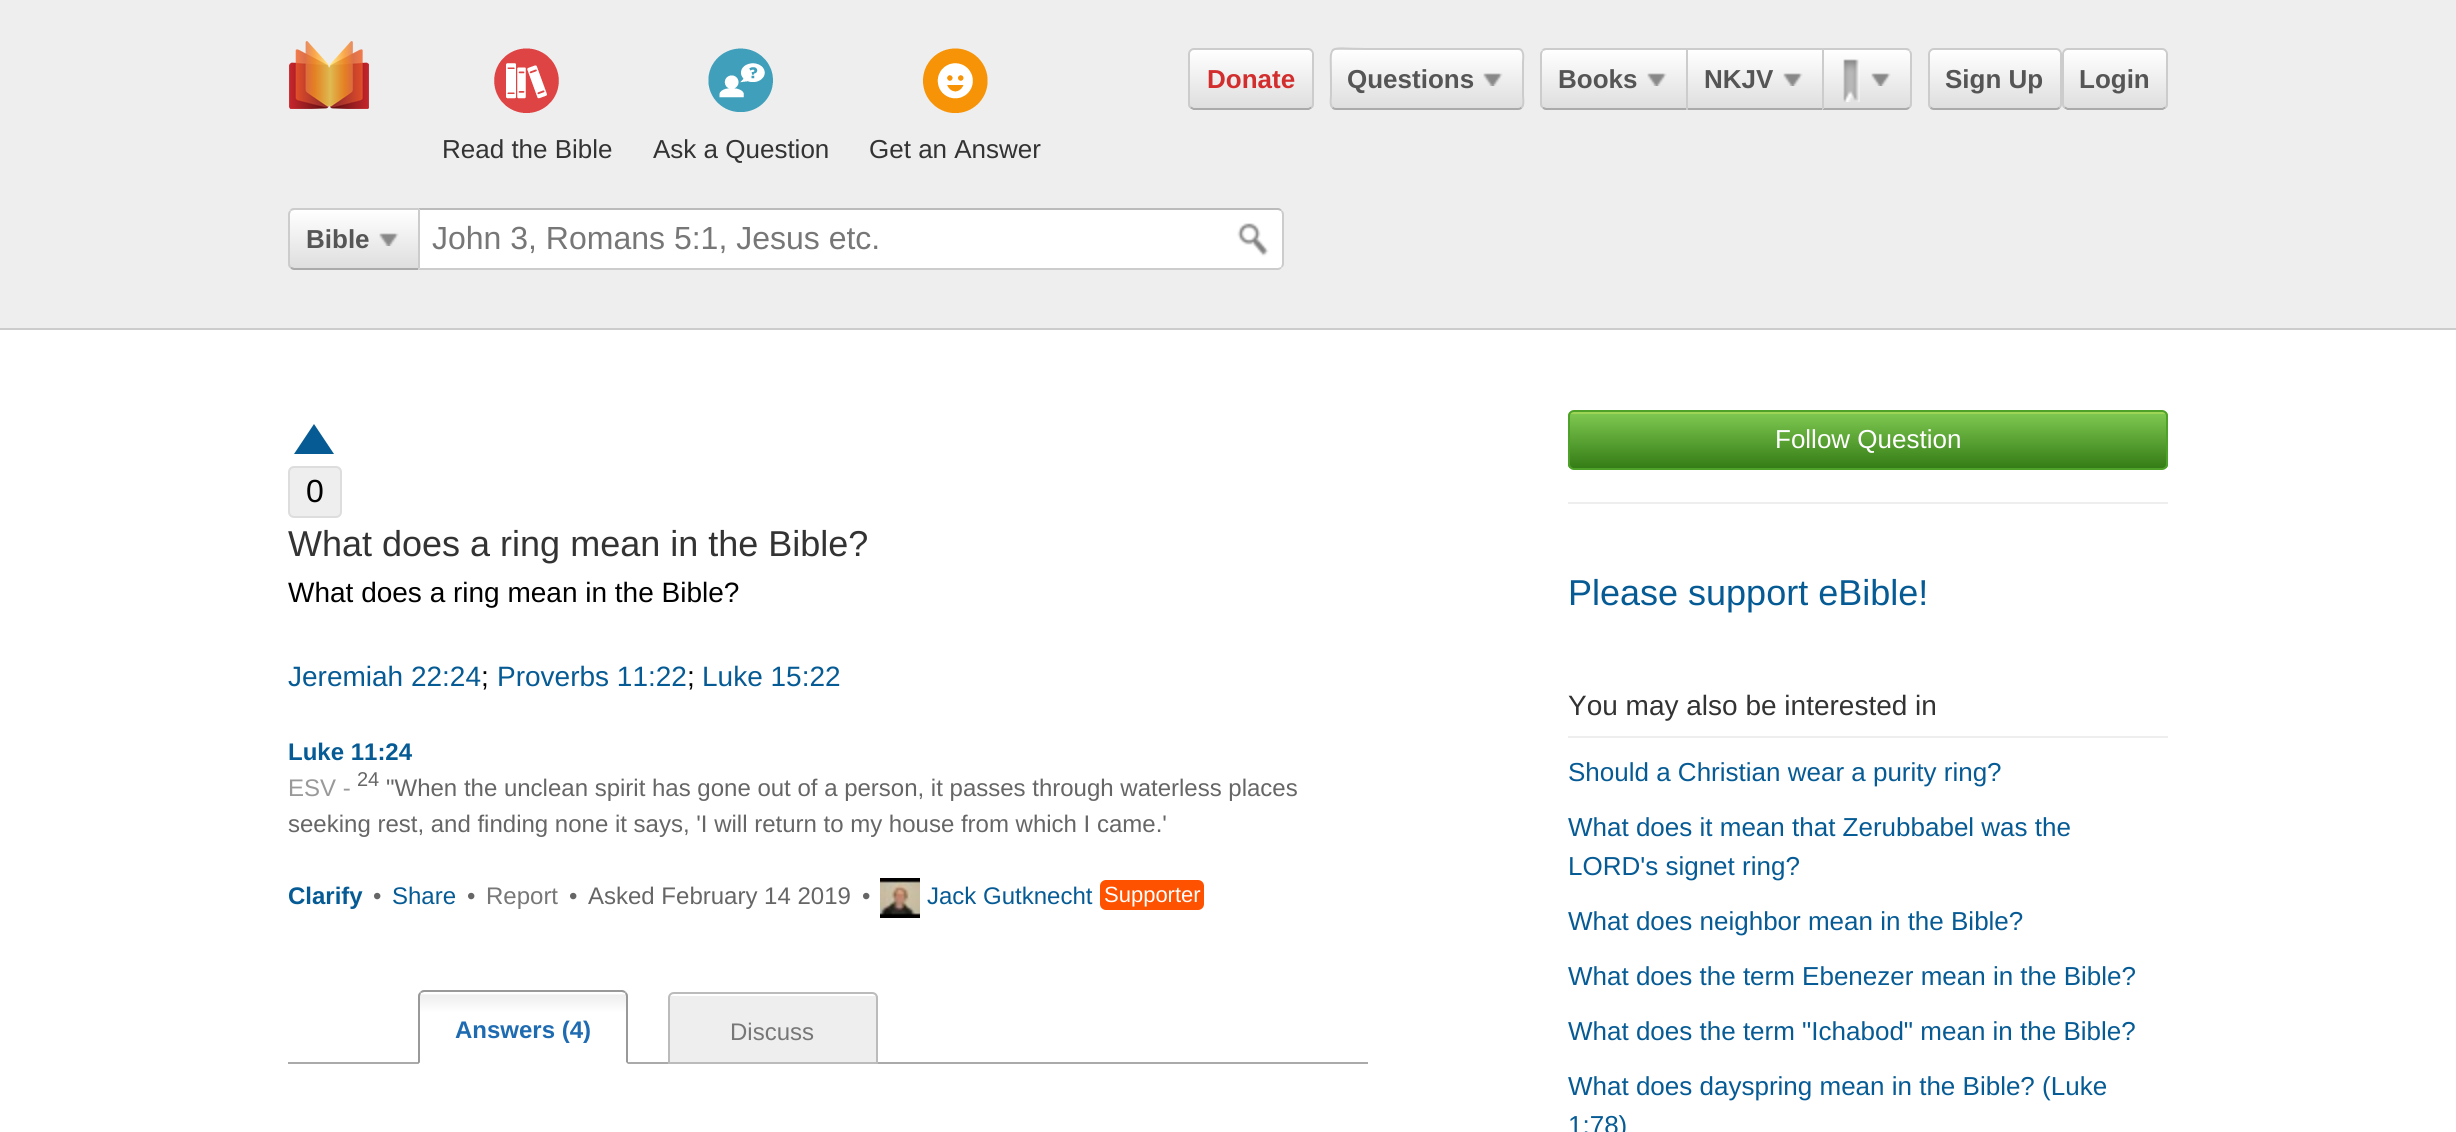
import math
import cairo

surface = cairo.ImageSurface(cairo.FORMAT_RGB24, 2456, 1132)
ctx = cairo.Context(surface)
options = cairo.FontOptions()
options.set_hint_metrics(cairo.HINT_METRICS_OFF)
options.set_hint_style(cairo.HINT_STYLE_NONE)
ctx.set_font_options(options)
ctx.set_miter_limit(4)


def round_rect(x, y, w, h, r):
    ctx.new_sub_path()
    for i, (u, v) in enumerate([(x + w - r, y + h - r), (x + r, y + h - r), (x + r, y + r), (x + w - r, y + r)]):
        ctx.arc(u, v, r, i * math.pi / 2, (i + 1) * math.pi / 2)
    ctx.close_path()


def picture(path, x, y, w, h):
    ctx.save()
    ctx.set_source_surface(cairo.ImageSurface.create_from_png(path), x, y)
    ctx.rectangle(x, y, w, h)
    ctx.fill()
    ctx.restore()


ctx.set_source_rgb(1, 1, 1)
ctx.paint()
ctx.set_source_rgb(0.933, 0.933, 0.933)
ctx.rectangle(0, 0, 2456, 328)
ctx.fill()
ctx.set_source_rgb(0.8, 0.8, 0.8)
ctx.rectangle(0, 328, 2456, 2)
ctx.fill()
picture("img1.png", 289, 41, 80, 68)
ctx.save()
round_rect(1188, 48, 126, 62, 6)
ctx.clip()
gradient = cairo.LinearGradient(1251, 50, 1251, 108)
gradient.add_color_stop_rgba(0, 1, 1, 1, 1)
gradient.add_color_stop_rgba(1, 0.871, 0.871, 0.871, 1)
ctx.set_source(gradient)
ctx.rectangle(1188, 50, 126, 58)
ctx.fill()
gradient = cairo.LinearGradient(1251, 108, 1251, 166)
gradient.add_color_stop_rgba(0, 1, 1, 1, 1)
gradient.add_color_stop_rgba(1, 0.871, 0.871, 0.871, 1)
ctx.set_source(gradient)
ctx.rectangle(1188, 108, 126, 2)
ctx.fill()
ctx.restore()
ctx.new_path()
ctx.move_to(1311.5, 107.5)
ctx.line_to(1308.5, 109)
ctx.line_to(1193.5, 109)
ctx.line_to(1190.5, 107.5)
ctx.set_source_rgb(0.667, 0.667, 0.667)
ctx.stroke()
ctx.new_path()
ctx.move_to(1190.5, 107.5)
ctx.curve_to(1189.5, 106.5, 1189, 105.5, 1189, 104)
ctx.line_to(1189, 54)
ctx.curve_to(1189, 52.5, 1189.5, 51.5, 1190.5, 50.5)
ctx.curve_to(1191.5, 49.5, 1192.5, 49, 1194, 49)
ctx.line_to(1308, 49)
ctx.curve_to(1309.5, 49, 1310.5, 49.5, 1311.5, 50.5)
ctx.curve_to(1312.5, 51.5, 1313, 52.5, 1313, 54)
ctx.line_to(1313, 104)
ctx.curve_to(1313, 105.5, 1312.5, 106.5, 1311.5, 107.5)
ctx.set_source_rgb(0.8, 0.8, 0.8)
ctx.stroke()
ctx.select_font_face("Liberation Sans", cairo.FONT_SLANT_NORMAL, cairo.FONT_WEIGHT_BOLD)
ctx.set_font_size(26)
ctx.set_source_rgb(0.824, 0.18, 0.18)
ctx.move_to(1207, 88)
ctx.show_text("Donate")
ctx.save()
round_rect(1330, 48, 194, 62, 6)
ctx.clip()
gradient = cairo.LinearGradient(1427, -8, 1427, 50)
gradient.add_color_stop_rgba(0, 1, 1, 1, 1)
gradient.add_color_stop_rgba(1, 0.871, 0.871, 0.871, 1)
ctx.set_source(gradient)
ctx.rectangle(1330, 48, 194, 2)
ctx.fill()
gradient = cairo.LinearGradient(1427, 50, 1427, 108)
gradient.add_color_stop_rgba(0, 1, 1, 1, 1)
gradient.add_color_stop_rgba(1, 0.871, 0.871, 0.871, 1)
ctx.set_source(gradient)
ctx.rectangle(1330, 50, 194, 58)
ctx.fill()
ctx.restore()
ctx.new_path()
ctx.move_to(1521.5, 107.5)
ctx.curve_to(1520.5, 108.5, 1519.5, 109, 1518, 109)
ctx.line_to(1336, 109)
ctx.curve_to(1334.5, 109, 1333.5, 108.5, 1332.5, 107.5)
ctx.set_source_rgb(0.667, 0.667, 0.667)
ctx.stroke()
ctx.new_path()
ctx.move_to(1332.5, 107.5)
ctx.curve_to(1329.5, 105, 1331, 98, 1331, 95.5)
ctx.line_to(1331, 79)
ctx.curve_to(1331, 41.5, 1325, 49, 1366.5, 49)
ctx.line_to(1518, 49)
ctx.curve_to(1525, 49, 1523, 58.5, 1523, 62.5)
ctx.line_to(1523, 95.5)
ctx.curve_to(1523, 98, 1524.5, 105, 1521.5, 107.5)
ctx.set_source_rgb(0.8, 0.8, 0.8)
ctx.stroke()
ctx.set_source_rgb(0.333, 0.333, 0.333)
ctx.move_to(1347, 88)
ctx.show_text("Questions")
picture("img2.png", 1483, 73, 20, 13)
ctx.save()
ctx.new_path()
ctx.move_to(1546, 48)
ctx.line_to(1688, 48)
ctx.line_to(1688, 110)
ctx.line_to(1546, 110)
ctx.curve_to(1542.5, 110, 1540, 107.5, 1540, 104)
ctx.line_to(1540, 54)
ctx.curve_to(1540, 50.5, 1542.5, 48, 1546, 48)
ctx.close_path()
ctx.clip()
gradient = cairo.LinearGradient(1614, -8, 1614, 50)
gradient.add_color_stop_rgba(0, 1, 1, 1, 1)
gradient.add_color_stop_rgba(1, 0.871, 0.871, 0.871, 1)
ctx.set_source(gradient)
ctx.rectangle(1540, 48, 6, 2)
ctx.fill()
gradient = cairo.LinearGradient(1614, 50, 1614, 108)
gradient.add_color_stop_rgba(0, 1, 1, 1, 1)
gradient.add_color_stop_rgba(1, 0.871, 0.871, 0.871, 1)
ctx.set_source(gradient)
ctx.rectangle(1540, 50, 146, 58)
ctx.fill()
gradient = cairo.LinearGradient(1614, 108, 1614, 166)
gradient.add_color_stop_rgba(0, 1, 1, 1, 1)
gradient.add_color_stop_rgba(1, 0.871, 0.871, 0.871, 1)
ctx.set_source(gradient)
ctx.rectangle(1540, 108, 6, 2)
ctx.fill()
ctx.restore()
ctx.set_source_rgb(0.8, 0.8, 0.8)
ctx.new_path()
ctx.move_to(1546, 48)
ctx.curve_to(1544, 48, 1543, 49, 1542, 50)
ctx.line_to(1543, 51)
ctx.line_to(1546, 50)
ctx.line_to(1686, 50)
ctx.line_to(1688, 48)
ctx.close_path()
ctx.fill()
ctx.set_source_rgb(0.667, 0.667, 0.667)
ctx.new_path()
ctx.move_to(1688, 110)
ctx.line_to(1686, 108)
ctx.line_to(1546, 108)
ctx.line_to(1543, 107)
ctx.line_to(1542, 108)
ctx.curve_to(1543, 109, 1544, 110, 1546, 110)
ctx.close_path()
ctx.fill()
ctx.set_source_rgb(0.8, 0.8, 0.8)
ctx.new_path()
ctx.move_to(1540, 54)
ctx.line_to(1540, 104)
ctx.curve_to(1540, 106, 1541, 107, 1542, 108)
ctx.line_to(1543, 107)
ctx.line_to(1542, 104)
ctx.line_to(1542, 54)
ctx.line_to(1543, 51)
ctx.line_to(1542, 50)
ctx.curve_to(1541, 51, 1540, 52, 1540, 54)
ctx.close_path()
ctx.fill()
ctx.set_source_rgb(0.333, 0.333, 0.333)
ctx.move_to(1558, 88)
ctx.show_text("Books")
picture("img2.png", 1647, 73, 20, 13)
gradient = cairo.LinearGradient(1755, 50, 1755, 108)
gradient.add_color_stop_rgba(0, 1, 1, 1, 1)
gradient.add_color_stop_rgba(1, 0.871, 0.871, 0.871, 1)
ctx.set_source(gradient)
ctx.rectangle(1688, 50, 134, 58)
ctx.fill()
ctx.set_source_rgb(0.8, 0.8, 0.8)
ctx.rectangle(1686, 48, 138, 2)
ctx.fill()
ctx.set_source_rgb(0.667, 0.667, 0.667)
ctx.rectangle(1686, 108, 138, 2)
ctx.fill()
ctx.set_source_rgb(0.8, 0.8, 0.8)
ctx.rectangle(1686, 48, 2, 62)
ctx.fill()
ctx.set_source_rgb(0.333, 0.333, 0.333)
ctx.move_to(1704, 88)
ctx.show_text("NKJV")
picture("img2.png", 1783, 73, 20, 13)
ctx.save()
ctx.new_path()
ctx.move_to(1822, 48)
ctx.line_to(1906, 48)
ctx.curve_to(1909.5, 48, 1912, 50.5, 1912, 54)
ctx.line_to(1912, 104)
ctx.curve_to(1912, 107.5, 1909.5, 110, 1906, 110)
ctx.line_to(1822, 110)
ctx.close_path()
ctx.clip()
gradient = cairo.LinearGradient(1867, -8, 1867, 50)
gradient.add_color_stop_rgba(0, 1, 1, 1, 1)
gradient.add_color_stop_rgba(1, 0.871, 0.871, 0.871, 1)
ctx.set_source(gradient)
ctx.rectangle(1822, 48, 90, 2)
ctx.fill()
gradient = cairo.LinearGradient(1867, 50, 1867, 108)
gradient.add_color_stop_rgba(0, 1, 1, 1, 1)
gradient.add_color_stop_rgba(1, 0.871, 0.871, 0.871, 1)
ctx.set_source(gradient)
ctx.rectangle(1824, 50, 88, 58)
ctx.fill()
gradient = cairo.LinearGradient(1867, 108, 1867, 166)
gradient.add_color_stop_rgba(0, 1, 1, 1, 1)
gradient.add_color_stop_rgba(1, 0.871, 0.871, 0.871, 1)
ctx.set_source(gradient)
ctx.rectangle(1822, 108, 90, 2)
ctx.fill()
ctx.restore()
ctx.set_source_rgb(0.8, 0.8, 0.8)
ctx.new_path()
ctx.move_to(1822, 48)
ctx.line_to(1824, 50)
ctx.line_to(1906, 50)
ctx.line_to(1909, 51)
ctx.line_to(1910, 50)
ctx.curve_to(1909, 49, 1908, 48, 1906, 48)
ctx.close_path()
ctx.fill()
ctx.new_path()
ctx.move_to(1912, 104)
ctx.line_to(1912, 54)
ctx.curve_to(1912, 52, 1911, 51, 1910, 50)
ctx.line_to(1909, 51)
ctx.line_to(1910, 54)
ctx.line_to(1910, 104)
ctx.line_to(1909, 107)
ctx.line_to(1910, 108)
ctx.curve_to(1911, 107, 1912, 106, 1912, 104)
ctx.close_path()
ctx.fill()
ctx.set_source_rgb(0.667, 0.667, 0.667)
ctx.new_path()
ctx.move_to(1906, 110)
ctx.curve_to(1908, 110, 1909, 109, 1910, 108)
ctx.line_to(1909, 107)
ctx.line_to(1906, 108)
ctx.line_to(1824, 108)
ctx.line_to(1822, 110)
ctx.close_path()
ctx.fill()
ctx.set_source_rgb(0.8, 0.8, 0.8)
ctx.new_path()
ctx.move_to(1822, 48)
ctx.line_to(1822, 110)
ctx.line_to(1824, 108)
ctx.line_to(1824, 50)
ctx.close_path()
ctx.fill()
picture("img3.png", 1843, 59, 17, 43)
picture("img2.png", 1871, 73, 20, 13)
ctx.save()
round_rect(1928, 48, 134, 62, 6)
ctx.clip()
gradient = cairo.LinearGradient(1995, 50, 1995, 108)
gradient.add_color_stop_rgba(0, 1, 1, 1, 1)
gradient.add_color_stop_rgba(1, 0.871, 0.871, 0.871, 1)
ctx.set_source(gradient)
ctx.rectangle(1928, 50, 134, 58)
ctx.fill()
ctx.restore()
ctx.new_path()
ctx.move_to(2059.5, 107.5)
ctx.curve_to(2058.5, 108.5, 2057.5, 109, 2056, 109)
ctx.line_to(1934, 109)
ctx.curve_to(1932.5, 109, 1931.5, 108.5, 1930.5, 107.5)
ctx.set_source_rgb(0.667, 0.667, 0.667)
ctx.stroke()
ctx.new_path()
ctx.move_to(1930.5, 107.5)
ctx.curve_to(1929.5, 106.5, 1929, 105.5, 1929, 104)
ctx.line_to(1929, 54)
ctx.curve_to(1929, 52.5, 1929.5, 51.5, 1930.5, 50.5)
ctx.curve_to(1931.5, 49.5, 1932.5, 49, 1934, 49)
ctx.line_to(2056, 49)
ctx.curve_to(2057.5, 49, 2058.5, 49.5, 2059.5, 50.5)
ctx.curve_to(2060.5, 51.5, 2061, 52.5, 2061, 54)
ctx.line_to(2061, 104)
ctx.curve_to(2061, 105.5, 2060.5, 106.5, 2059.5, 107.5)
ctx.set_source_rgb(0.8, 0.8, 0.8)
ctx.stroke()
ctx.set_source_rgb(0.333, 0.333, 0.333)
ctx.move_to(1945, 88)
ctx.show_text("Sign Up")
ctx.save()
round_rect(2062, 48, 106, 62, 6)
ctx.clip()
gradient = cairo.LinearGradient(2115, 50, 2115, 108)
gradient.add_color_stop_rgba(0, 1, 1, 1, 1)
gradient.add_color_stop_rgba(1, 0.871, 0.871, 0.871, 1)
ctx.set_source(gradient)
ctx.rectangle(2062, 50, 106, 58)
ctx.fill()
gradient = cairo.LinearGradient(2115, 108, 2115, 166)
gradient.add_color_stop_rgba(0, 1, 1, 1, 1)
gradient.add_color_stop_rgba(1, 0.871, 0.871, 0.871, 1)
ctx.set_source(gradient)
ctx.rectangle(2062, 108, 106, 2)
ctx.fill()
ctx.restore()
ctx.new_path()
ctx.move_to(2165.5, 107.5)
ctx.line_to(2162.5, 109)
ctx.line_to(2067.5, 109)
ctx.line_to(2064.5, 107.5)
ctx.set_source_rgb(0.667, 0.667, 0.667)
ctx.stroke()
ctx.new_path()
ctx.move_to(2064.5, 107.5)
ctx.curve_to(2063.5, 106.5, 2063, 105.5, 2063, 104)
ctx.line_to(2063, 54)
ctx.curve_to(2063, 52.5, 2063.5, 51.5, 2064.5, 50.5)
ctx.curve_to(2065.5, 49.5, 2066.5, 49, 2068, 49)
ctx.line_to(2162, 49)
ctx.curve_to(2163.5, 49, 2164.5, 49.5, 2165.5, 50.5)
ctx.curve_to(2166.5, 51.5, 2167, 52.5, 2167, 54)
ctx.line_to(2167, 104)
ctx.curve_to(2167, 105.5, 2166.5, 106.5, 2165.5, 107.5)
ctx.set_source_rgb(0.8, 0.8, 0.8)
ctx.stroke()
ctx.set_source_rgb(0.333, 0.333, 0.333)
ctx.move_to(2079, 88)
ctx.show_text("Login")
picture("img4.png", 494, 48, 65, 65)
ctx.select_font_face("Liberation Sans")
ctx.set_source_rgb(0.2, 0.2, 0.2)
ctx.move_to(442, 158)
ctx.show_text("Read the Bible")
picture("img5.png", 708, 48, 65, 64)
ctx.move_to(653, 158)
ctx.show_text("Ask a Question")
picture("img6.png", 923, 48, 65, 65)
ctx.move_to(869, 158)
ctx.show_text("Get an Answer")
ctx.save()
ctx.new_path()
ctx.move_to(294, 208)
ctx.line_to(420, 208)
ctx.line_to(420, 270)
ctx.line_to(294, 270)
ctx.curve_to(290.5, 270, 288, 267.5, 288, 264)
ctx.line_to(288, 214)
ctx.curve_to(288, 210.5, 290.5, 208, 294, 208)
ctx.close_path()
ctx.clip()
gradient = cairo.LinearGradient(354, 152, 354, 210)
gradient.add_color_stop_rgba(0, 1, 1, 1, 1)
gradient.add_color_stop_rgba(1, 0.871, 0.871, 0.871, 1)
ctx.set_source(gradient)
ctx.rectangle(288, 208, 6, 2)
ctx.fill()
gradient = cairo.LinearGradient(354, 210, 354, 268)
gradient.add_color_stop_rgba(0, 1, 1, 1, 1)
gradient.add_color_stop_rgba(1, 0.871, 0.871, 0.871, 1)
ctx.set_source(gradient)
ctx.rectangle(288, 210, 130, 58)
ctx.fill()
gradient = cairo.LinearGradient(354, 268, 354, 326)
gradient.add_color_stop_rgba(0, 1, 1, 1, 1)
gradient.add_color_stop_rgba(1, 0.871, 0.871, 0.871, 1)
ctx.set_source(gradient)
ctx.rectangle(288, 268, 6, 2)
ctx.fill()
ctx.restore()
ctx.set_source_rgb(0.8, 0.8, 0.8)
ctx.new_path()
ctx.move_to(294, 208)
ctx.curve_to(292, 208, 291, 209, 290, 210)
ctx.line_to(291, 211)
ctx.line_to(294, 210)
ctx.line_to(418, 210)
ctx.line_to(420, 208)
ctx.close_path()
ctx.fill()
ctx.set_source_rgb(0.667, 0.667, 0.667)
ctx.new_path()
ctx.move_to(420, 270)
ctx.line_to(418, 268)
ctx.line_to(294, 268)
ctx.line_to(291, 267)
ctx.line_to(290, 268)
ctx.curve_to(291, 269, 292, 270, 294, 270)
ctx.close_path()
ctx.fill()
ctx.set_source_rgb(0.8, 0.8, 0.8)
ctx.new_path()
ctx.move_to(288, 214)
ctx.line_to(288, 264)
ctx.curve_to(288, 266, 289, 267, 290, 268)
ctx.line_to(291, 267)
ctx.line_to(290, 264)
ctx.line_to(290, 214)
ctx.line_to(291, 211)
ctx.line_to(290, 210)
ctx.curve_to(289, 211, 288, 212, 288, 214)
ctx.close_path()
ctx.fill()
ctx.select_font_face("Liberation Sans", cairo.FONT_SLANT_NORMAL, cairo.FONT_WEIGHT_BOLD)
ctx.set_source_rgb(0.333, 0.333, 0.333)
ctx.move_to(306, 248)
ctx.show_text("Bible")
picture("img2.png", 379, 233, 20, 13)
ctx.set_source_rgb(1, 1, 1)
ctx.new_path()
ctx.move_to(418, 208)
ctx.line_to(1278, 208)
ctx.curve_to(1281.5, 208, 1284, 210.5, 1284, 214)
ctx.line_to(1284, 264)
ctx.curve_to(1284, 267.5, 1281.5, 270, 1278, 270)
ctx.line_to(418, 270)
ctx.close_path()
ctx.fill()
ctx.set_source_rgb(0.733, 0.733, 0.733)
ctx.new_path()
ctx.move_to(418, 208)
ctx.line_to(420, 210)
ctx.line_to(1278, 210)
ctx.line_to(1281, 211)
ctx.line_to(1282, 210)
ctx.curve_to(1281, 209, 1280, 208, 1278, 208)
ctx.close_path()
ctx.fill()
ctx.set_source_rgb(0.8, 0.8, 0.8)
ctx.new_path()
ctx.move_to(1284, 264)
ctx.line_to(1284, 214)
ctx.curve_to(1284, 212, 1283, 211, 1282, 210)
ctx.line_to(1281, 211)
ctx.line_to(1282, 214)
ctx.line_to(1282, 264)
ctx.line_to(1281, 267)
ctx.line_to(1282, 268)
ctx.curve_to(1283, 267, 1284, 266, 1284, 264)
ctx.close_path()
ctx.fill()
ctx.new_path()
ctx.move_to(1278, 270)
ctx.curve_to(1280, 270, 1281, 269, 1282, 268)
ctx.line_to(1281, 267)
ctx.line_to(1278, 268)
ctx.line_to(420, 268)
ctx.line_to(418, 270)
ctx.close_path()
ctx.fill()
ctx.new_path()
ctx.move_to(418, 208)
ctx.line_to(418, 270)
ctx.line_to(420, 268)
ctx.line_to(420, 210)
ctx.close_path()
ctx.fill()
ctx.select_font_face("Liberation Sans")
ctx.set_font_size(32)
ctx.set_source_rgb(0.467, 0.467, 0.467)
ctx.move_to(432, 249)
ctx.show_text("John 3, Romans 5:1, Jesus etc.")
picture("img7.png", 1237, 223, 32, 34)
ctx.set_source_rgb(0.027, 0.357, 0.584)
ctx.new_path()
ctx.move_to(334, 454)
ctx.line_to(294, 454)
ctx.line_to(314, 424)
ctx.close_path()
ctx.fill()
ctx.set_source_rgb(0.933, 0.933, 0.933)
round_rect(289, 467, 52, 50, 5)
ctx.fill_preserve()
ctx.set_source_rgb(0.867, 0.867, 0.867)
ctx.stroke()
ctx.set_source_rgb(0, 0, 0)
ctx.move_to(306, 502)
ctx.show_text("0")
ctx.set_font_size(36)
ctx.set_source_rgb(0.2, 0.2, 0.2)
ctx.move_to(288, 556)
ctx.show_text("What does a ring mean in the Bible?")
ctx.set_font_size(28)
ctx.set_source_rgb(0, 0, 0)
ctx.move_to(288, 602)
ctx.show_text("What does a ring mean in the Bible?")
ctx.set_source_rgb(0.027, 0.357, 0.584)
ctx.move_to(288, 686)
ctx.show_text("Jeremiah 22:24")
ctx.set_source_rgb(0, 0, 0)
ctx.move_to(481, 686)
ctx.show_text(";")
ctx.set_source_rgb(0.027, 0.357, 0.584)
ctx.move_to(497, 686)
ctx.show_text("Proverbs 11:22")
ctx.set_source_rgb(0, 0, 0)
ctx.move_to(687, 686)
ctx.show_text(";")
ctx.set_source_rgb(0.027, 0.357, 0.584)
ctx.move_to(702, 686)
ctx.show_text("Luke 15:22")
ctx.select_font_face("Liberation Sans", cairo.FONT_SLANT_NORMAL, cairo.FONT_WEIGHT_BOLD)
ctx.set_font_size(24)
ctx.move_to(288, 760)
ctx.show_text("Luke 11:24")
ctx.select_font_face("Liberation Sans")
ctx.set_source_rgb(0.6, 0.6, 0.6)
ctx.move_to(288, 796)
ctx.show_text("ESV -")
ctx.set_font_size(20)
ctx.set_source_rgb(0.4, 0.4, 0.4)
ctx.move_to(357, 786)
ctx.show_text("24")
ctx.set_font_size(24)
ctx.move_to(386, 796)
ctx.show_text("\"When the unclean spirit has gone out of a person, it passes through waterless places")
ctx.move_to(288, 832)
ctx.show_text("seeking rest, and finding none it says, 'I will return to my house from which I came.'")
ctx.select_font_face("Liberation Sans", cairo.FONT_SLANT_NORMAL, cairo.FONT_WEIGHT_BOLD)
ctx.set_source_rgb(0.027, 0.357, 0.584)
ctx.move_to(288, 904)
ctx.show_text("Clarify")
ctx.select_font_face("Liberation Sans")
ctx.set_source_rgb(0.4, 0.4, 0.4)
ctx.move_to(373, 904)
ctx.show_text("•")
ctx.set_source_rgb(0.027, 0.357, 0.584)
ctx.move_to(392, 904)
ctx.show_text("Share")
ctx.set_source_rgb(0.4, 0.4, 0.4)
ctx.move_to(467, 904)
ctx.show_text("•")
ctx.set_source_rgb(0.467, 0.467, 0.467)
ctx.move_to(486, 904)
ctx.show_text("Report")
ctx.set_source_rgb(0.4, 0.4, 0.4)
ctx.move_to(569, 904)
ctx.show_text("•")
ctx.move_to(588, 904)
ctx.show_text("Asked February 14 2019")
ctx.move_to(862, 904)
ctx.show_text("•")
picture("img8.png", 880, 878, 40, 40)
ctx.set_source_rgb(0.027, 0.357, 0.584)
ctx.move_to(927, 904)
ctx.show_text("Jack Gutknecht")
ctx.set_source_rgb(1, 0.322, 0)
round_rect(1100, 880, 104, 30, 6)
ctx.fill()
ctx.set_font_size(22)
ctx.set_source_rgb(1, 1, 1)
ctx.move_to(1104, 902)
ctx.show_text("Supporter")
ctx.set_source_rgb(0.667, 0.667, 0.667)
ctx.rectangle(288, 1062, 1080, 2)
ctx.fill()
ctx.save()
ctx.new_path()
ctx.move_to(424, 990)
ctx.line_to(622, 990)
ctx.curve_to(625.5, 990, 628, 992.5, 628, 996)
ctx.line_to(628, 1064)
ctx.line_to(418, 1064)
ctx.line_to(418, 996)
ctx.curve_to(418, 992.5, 420.5, 990, 424, 990)
ctx.close_path()
ctx.clip()
gradient = cairo.LinearGradient(523, 1062, 523, 992)
gradient.add_color_stop_rgba(0.7, 1, 1, 1, 1)
gradient.add_color_stop_rgba(0.96, 0.933, 0.933, 0.933, 1)
gradient.add_color_stop_rgba(0.97, 1, 1, 1, 1)
ctx.set_source(gradient)
ctx.rectangle(418, 992, 210, 70)
ctx.fill()
ctx.restore()
ctx.set_source_rgb(0.6, 0.6, 0.6)
ctx.new_path()
ctx.move_to(424, 990)
ctx.curve_to(422, 990, 421, 991, 420, 992)
ctx.line_to(421, 993)
ctx.line_to(424, 992)
ctx.line_to(589, 992)
ctx.line_to(622, 992)
ctx.line_to(625, 993)
ctx.line_to(626, 992)
ctx.curve_to(625, 991, 624, 990, 622, 990)
ctx.close_path()
ctx.fill()
ctx.new_path()
ctx.move_to(628, 1064)
ctx.line_to(628, 996)
ctx.curve_to(628, 994, 627, 993, 626, 992)
ctx.line_to(625, 993)
ctx.line_to(626, 996)
ctx.line_to(626, 1062)
ctx.close_path()
ctx.fill()
ctx.set_source_rgb(1, 1, 1)
ctx.new_path()
ctx.move_to(628, 1064)
ctx.line_to(626, 1062)
ctx.line_to(420, 1062)
ctx.line_to(418, 1064)
ctx.close_path()
ctx.fill()
ctx.set_source_rgb(0.6, 0.6, 0.6)
ctx.new_path()
ctx.move_to(418, 1064)
ctx.line_to(420, 1062)
ctx.line_to(420, 996)
ctx.line_to(421, 993)
ctx.line_to(420, 992)
ctx.curve_to(419, 993, 418, 994, 418, 996)
ctx.close_path()
ctx.fill()
ctx.select_font_face("Liberation Sans", cairo.FONT_SLANT_NORMAL, cairo.FONT_WEIGHT_BOLD)
ctx.set_font_size(24)
ctx.set_source_rgb(0.118, 0.42, 0.698)
ctx.move_to(455, 1038)
ctx.show_text("Answers (4)")
ctx.set_source_rgb(0.933, 0.933, 0.933)
ctx.rectangle(668, 996, 210, 66)
ctx.fill()
ctx.new_path()
ctx.move_to(674, 993)
ctx.line_to(872, 993)
ctx.curve_to(875, 993, 877, 995, 877, 998)
ctx.line_to(877, 1063)
ctx.line_to(669, 1063)
ctx.line_to(669, 998)
ctx.curve_to(669, 995, 671, 993, 674, 993)
ctx.close_path()
ctx.set_source_rgb(0.733, 0.733, 0.733)
ctx.stroke()
ctx.select_font_face("Liberation Sans")
ctx.set_source_rgb(0.467, 0.467, 0.467)
ctx.move_to(730, 1040)
ctx.show_text("Discuss")
ctx.save()
round_rect(1568, 410, 600, 60, 6)
ctx.clip()
gradient = cairo.LinearGradient(1868, 468, 1868, 412)
gradient.add_color_stop_rgba(0.01, 0.208, 0.49, 0.086, 1)
gradient.add_color_stop_rgba(0.96, 0.49, 0.78, 0.314, 1)
gradient.add_color_stop_rgba(0.97, 0.62, 0.835, 0.341, 1)
ctx.set_source(gradient)
ctx.rectangle(1568, 412, 600, 56)
ctx.fill()
ctx.restore()
round_rect(1569, 411, 598, 58, 5)
ctx.set_source_rgb(0.306, 0.635, 0.161)
ctx.stroke()
ctx.set_font_size(26)
ctx.set_source_rgb(1, 1, 1)
ctx.move_to(1775, 448)
ctx.show_text("Follow Question")
ctx.set_source_rgb(0.933, 0.933, 0.933)
ctx.rectangle(1568, 502, 600, 2)
ctx.fill()
ctx.set_font_size(36)
ctx.set_source_rgb(0.027, 0.357, 0.584)
ctx.move_to(1568, 605)
ctx.show_text("Please support eBible!")
ctx.set_font_size(28)
ctx.set_source_rgb(0.2, 0.2, 0.2)
ctx.move_to(1568, 715)
ctx.show_text("You may also be interested in")
ctx.set_source_rgb(0.933, 0.933, 0.933)
ctx.rectangle(1568, 736, 600, 2)
ctx.fill()
ctx.set_font_size(26)
ctx.set_source_rgb(0.027, 0.357, 0.584)
ctx.move_to(1568, 781)
ctx.show_text("Should a Christian wear a purity ring?")
ctx.move_to(1568, 836)
ctx.show_text("What does it mean that Zerubbabel was the")
ctx.move_to(1568, 875)
ctx.show_text("LORD's signet ring?")
ctx.move_to(1568, 930)
ctx.show_text("What does neighbor mean in the Bible?")
ctx.move_to(1568, 985)
ctx.show_text("What does the term Ebenezer mean in the Bible?")
ctx.move_to(1568, 1040)
ctx.show_text("What does the term \"Ichabod\" mean in the Bible?")
ctx.move_to(1568, 1095)
ctx.show_text("What does dayspring mean in the Bible? (Luke")
ctx.move_to(1568, 1134)
ctx.show_text("1:78)")
surface.write_to_png("page.png")
